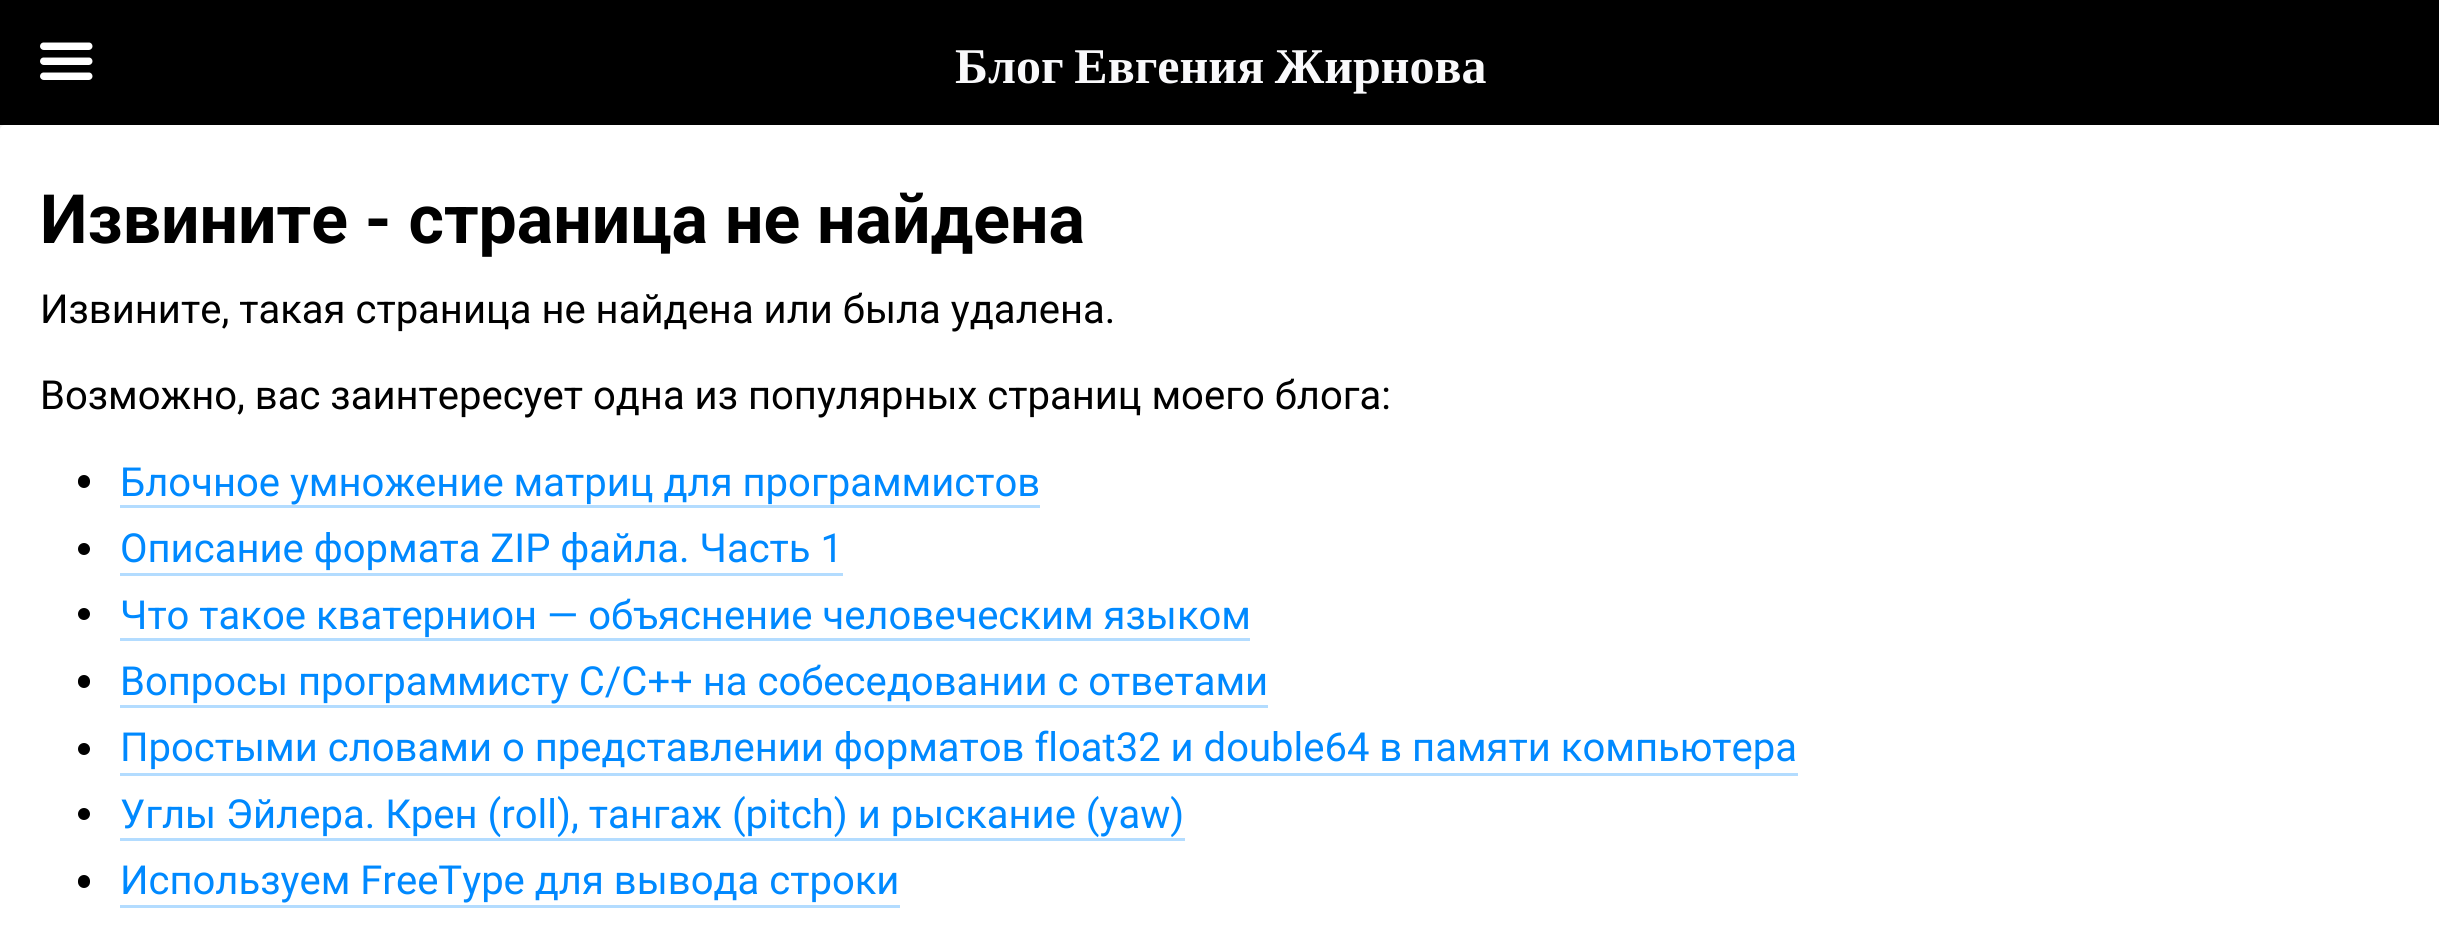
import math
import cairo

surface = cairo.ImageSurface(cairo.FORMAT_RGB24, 2439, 939)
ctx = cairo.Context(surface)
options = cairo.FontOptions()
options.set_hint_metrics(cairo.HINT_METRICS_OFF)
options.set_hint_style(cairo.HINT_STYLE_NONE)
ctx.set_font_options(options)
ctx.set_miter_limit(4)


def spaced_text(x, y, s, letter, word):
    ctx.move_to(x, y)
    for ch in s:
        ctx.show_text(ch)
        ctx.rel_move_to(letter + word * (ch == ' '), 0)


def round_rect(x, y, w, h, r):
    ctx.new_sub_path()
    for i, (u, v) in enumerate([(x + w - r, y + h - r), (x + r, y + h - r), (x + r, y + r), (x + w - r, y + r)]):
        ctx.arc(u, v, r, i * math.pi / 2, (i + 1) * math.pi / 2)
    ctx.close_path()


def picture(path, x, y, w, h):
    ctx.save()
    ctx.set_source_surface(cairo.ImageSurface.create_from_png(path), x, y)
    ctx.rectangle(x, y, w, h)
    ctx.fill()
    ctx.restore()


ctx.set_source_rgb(0.941, 0.941, 0.941)
ctx.paint()
ctx.set_source_rgb(0, 0, 0)
ctx.rectangle(0, 0, 2439, 125)
ctx.fill()
picture("img1.png", 40, 42, 53, 38)
ctx.select_font_face("Liberation Serif", cairo.FONT_SLANT_NORMAL, cairo.FONT_WEIGHT_BOLD)
ctx.set_font_size(50)
ctx.set_source_rgb(0.976, 0.976, 0.984)
spaced_text(955, 83, "Блог Евгения Жирнова", 0, -2)
ctx.set_source_rgb(1, 1, 1)
round_rect(0, 125, 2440, 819, 5)
ctx.fill()
ctx.select_font_face("Roboto", cairo.FONT_SLANT_NORMAL, cairo.FONT_WEIGHT_BOLD)
ctx.set_font_size(68)
ctx.set_source_rgb(0, 0, 0)
ctx.move_to(40, 243)
ctx.show_text("Извините - страница не найдена")
ctx.select_font_face("Roboto")
ctx.set_font_size(40)
ctx.move_to(40, 323)
ctx.show_text("Извините, такая страница не найдена или была удалена.")
ctx.move_to(40, 409)
ctx.show_text("Возможно, вас заинтересует одна из популярных страниц моего блога:")
round_rect(78, 475, 12, 13, 6)
ctx.fill()
ctx.set_source_rgb(0, 0.537, 1)
ctx.move_to(120, 496)
ctx.show_text("Блочное умножение матриц для программистов")
ctx.set_source_rgb(0.702, 0.863, 1)
ctx.rectangle(120, 505, 920, 3)
ctx.fill()
ctx.set_source_rgb(0, 0, 0)
ctx.arc(84, 549, 6, 0, 2 * math.pi)
ctx.fill()
ctx.set_source_rgb(0, 0.537, 1)
ctx.move_to(120, 562)
ctx.show_text("Описание формата ZIP файла. Часть 1")
ctx.set_source_rgb(0.702, 0.863, 1)
ctx.rectangle(120, 573, 723, 3)
ctx.fill()
ctx.set_source_rgb(0, 0, 0)
ctx.arc(84, 614, 6, 0, 2 * math.pi)
ctx.fill()
ctx.set_source_rgb(0, 0.537, 1)
ctx.move_to(120, 629)
ctx.show_text("Что такое кватернион — объяснение человеческим языком")
ctx.set_source_rgb(0.702, 0.863, 1)
ctx.rectangle(120, 638, 1130, 3)
ctx.fill()
ctx.set_source_rgb(0, 0, 0)
round_rect(78, 675, 12, 13, 6)
ctx.fill()
ctx.set_source_rgb(0, 0.537, 1)
ctx.move_to(120, 695)
ctx.show_text("Вопросы программисту C/C++ на собеседовании с ответами")
ctx.set_source_rgb(0.702, 0.863, 1)
ctx.rectangle(120, 705, 1148, 3)
ctx.fill()
ctx.set_source_rgb(0, 0, 0)
ctx.arc(84, 749, 6, 0, 2 * math.pi)
ctx.fill()
ctx.set_source_rgb(0, 0.537, 1)
ctx.move_to(120, 761)
ctx.show_text("Простыми словами о представлении форматов float32 и double64 в памяти компьютера")
ctx.set_source_rgb(0.702, 0.863, 1)
ctx.rectangle(120, 773, 1678, 3)
ctx.fill()
ctx.set_source_rgb(0, 0, 0)
ctx.arc(84, 814, 6, 0, 2 * math.pi)
ctx.fill()
ctx.set_source_rgb(0, 0.537, 1)
ctx.move_to(120, 828)
ctx.show_text("Углы Эйлера. Крен (roll), тангаж (pitch) и рыскание (yaw)")
ctx.set_source_rgb(0.702, 0.863, 1)
ctx.rectangle(120, 838, 1065, 3)
ctx.fill()
ctx.set_source_rgb(0, 0, 0)
round_rect(78, 875, 12, 13, 6)
ctx.fill()
ctx.set_source_rgb(0, 0.537, 1)
ctx.move_to(120, 894)
ctx.show_text("Используем FreeType для вывода строки")
ctx.set_source_rgb(0.702, 0.863, 1)
ctx.rectangle(120, 905, 780, 3)
ctx.fill()
surface.write_to_png("page.png")
